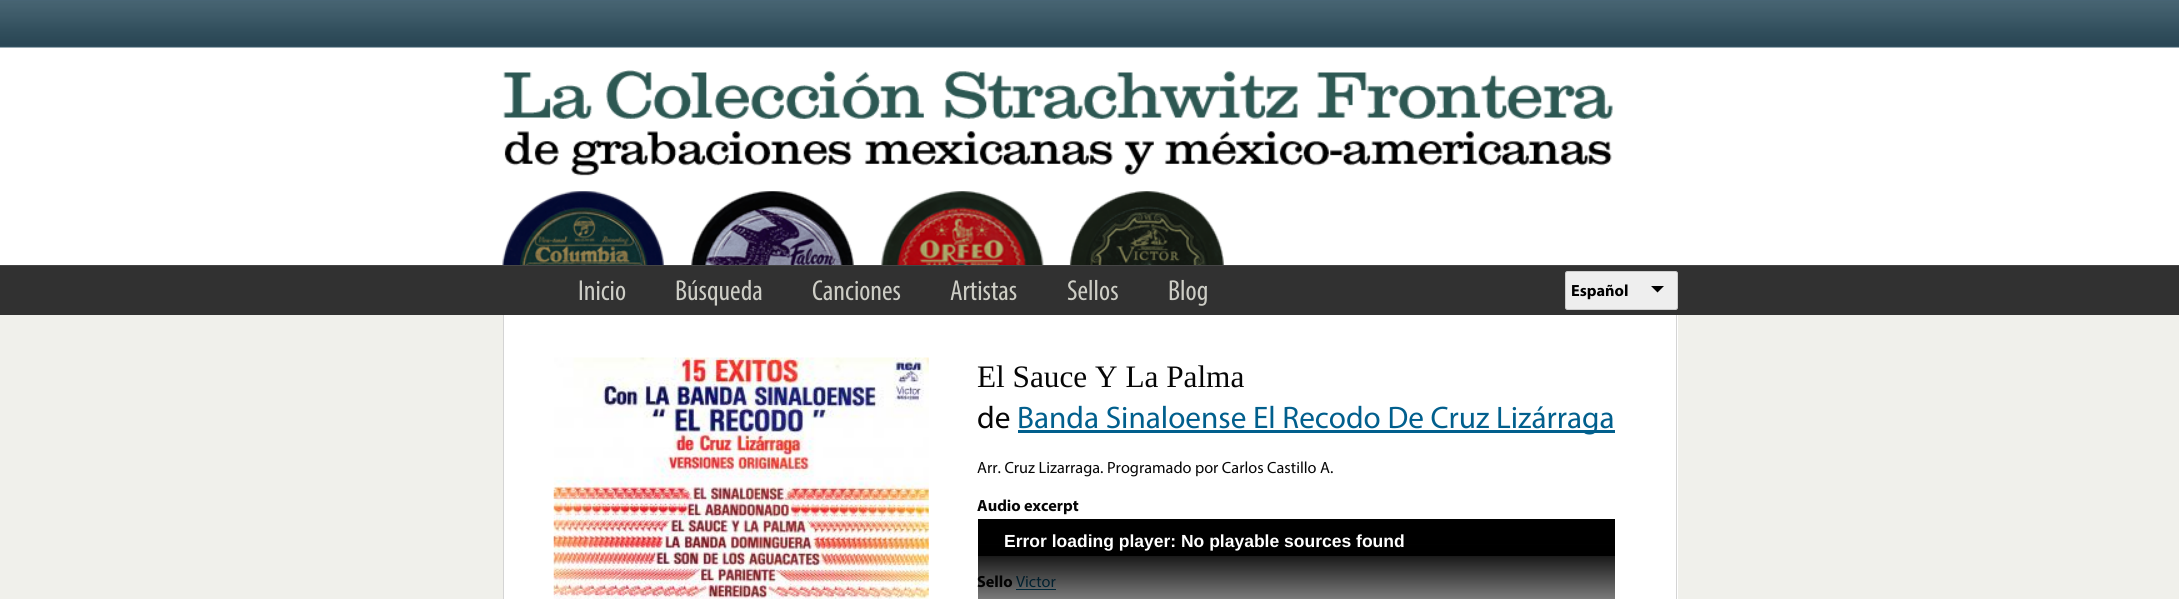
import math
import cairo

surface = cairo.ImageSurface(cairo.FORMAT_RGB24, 2179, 599)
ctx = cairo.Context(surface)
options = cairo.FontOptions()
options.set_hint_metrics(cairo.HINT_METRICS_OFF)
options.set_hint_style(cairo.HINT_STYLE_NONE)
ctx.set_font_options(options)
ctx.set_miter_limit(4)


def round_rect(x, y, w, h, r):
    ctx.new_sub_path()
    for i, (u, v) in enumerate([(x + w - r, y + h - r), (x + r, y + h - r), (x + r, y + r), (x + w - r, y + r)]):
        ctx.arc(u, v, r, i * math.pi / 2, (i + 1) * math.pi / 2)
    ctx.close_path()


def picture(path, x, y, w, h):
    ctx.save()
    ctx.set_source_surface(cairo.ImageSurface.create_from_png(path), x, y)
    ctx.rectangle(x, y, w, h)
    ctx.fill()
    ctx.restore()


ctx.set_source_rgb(1, 1, 1)
ctx.paint()
picture("img1.png", 0, 0, 2179, 48)
picture("img2.png", 502, 191, 722, 74)
picture("img3.png", 503, 70, 1110, 106)
ctx.set_source_rgb(0.192, 0.192, 0.192)
ctx.rectangle(0, 266, 2179, 49)
ctx.fill()
ctx.set_source_rgb(0.271, 0.271, 0.271)
ctx.rectangle(0, 265, 2179, 1)
ctx.fill()
ctx.select_font_face("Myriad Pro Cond")
ctx.set_font_size(29)
ctx.set_source_rgb(0.804, 0.804, 0.773)
ctx.move_to(578, 300)
ctx.show_text("Inicio")
ctx.move_to(675, 300)
ctx.show_text("Búsqueda")
ctx.move_to(812, 300)
ctx.show_text("Canciones")
ctx.move_to(950, 300)
ctx.show_text("Artistas")
ctx.move_to(1067, 300)
ctx.show_text("Sellos")
ctx.move_to(1168, 300)
ctx.show_text("Blog")
ctx.set_source_rgb(0.933, 0.933, 0.933)
round_rect(1565.5, 271.5, 112, 38, 2)
ctx.fill_preserve()
ctx.set_source_rgb(0.8, 0.8, 0.8)
ctx.set_line_width(1)
ctx.stroke()
ctx.select_font_face("Myriad", cairo.FONT_SLANT_NORMAL, cairo.FONT_WEIGHT_BOLD)
ctx.set_font_size(16.25)
ctx.set_source_rgb(0, 0, 0)
ctx.move_to(1571, 296)
ctx.show_text("Español")
ctx.new_path()
ctx.move_to(1651, 286)
ctx.line_to(1664, 286)
ctx.line_to(1657.5, 292.5)
ctx.close_path()
ctx.fill()
ctx.set_source_rgb(0.941, 0.941, 0.918)
ctx.rectangle(0, 315, 2179, 284)
ctx.fill()
ctx.set_source_rgb(1, 1, 1)
ctx.rectangle(504, 315, 1174, 284)
ctx.fill()
ctx.set_source_rgb(0.831, 0.831, 0.831)
ctx.rectangle(1676, 315, 1, 284)
ctx.fill()
ctx.rectangle(503, 315, 1, 284)
ctx.fill()
picture("img4.png", 553, 357, 376, 242)
ctx.select_font_face("Liberation Serif")
ctx.set_font_size(31.25)
ctx.set_source_rgb(0.024, 0.024, 0.024)
ctx.move_to(977, 387)
ctx.show_text("El Sauce Y La Palma")
ctx.select_font_face("Myriad")
ctx.move_to(977, 428)
ctx.show_text("de")
ctx.set_source_rgb(0.004, 0.373, 0.553)
ctx.rectangle(1018, 430, 597, 3)
ctx.fill()
ctx.move_to(1017, 428)
ctx.show_text("Banda Sinaloense El Recodo De Cruz Lizárraga")
ctx.set_font_size(16.25)
ctx.set_source_rgb(0.024, 0.024, 0.024)
ctx.move_to(977, 473)
ctx.show_text("Arr. Cruz Lizarraga. Programado por Carlos Castillo A.")
ctx.select_font_face("Myriad", cairo.FONT_SLANT_NORMAL, cairo.FONT_WEIGHT_BOLD)
ctx.move_to(977, 511)
ctx.show_text("Audio excerpt")
ctx.set_source_rgb(0, 0, 0)
ctx.rectangle(978, 545, 637, 11)
ctx.fill()
ctx.set_source_rgb(0.024, 0.024, 0.024)
ctx.move_to(977, 587)
ctx.show_text("Sello")
ctx.select_font_face("Myriad")
ctx.set_source_rgb(0.004, 0.373, 0.553)
ctx.move_to(1016, 587)
ctx.show_text("Victor")
ctx.rectangle(1016, 589, 40, 1)
ctx.fill()
gradient = cairo.LinearGradient(1296, 519, 1296, 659)
gradient.add_color_stop_rgba(0, 0, 0, 0, 1)
gradient.add_color_stop_rgba(0.18, 0, 0, 0, 1)
gradient.add_color_stop_rgba(1, 0, 0, 0, 0)
ctx.set_source(gradient)
ctx.rectangle(978, 519, 637, 80)
ctx.fill()
ctx.select_font_face("Liberation Sans", cairo.FONT_SLANT_NORMAL, cairo.FONT_WEIGHT_BOLD)
ctx.set_font_size(17.5)
ctx.set_source_rgb(1, 1, 1)
ctx.move_to(1004, 547)
ctx.show_text("Error loading player: No playable sources found")
surface.write_to_png("page.png")
